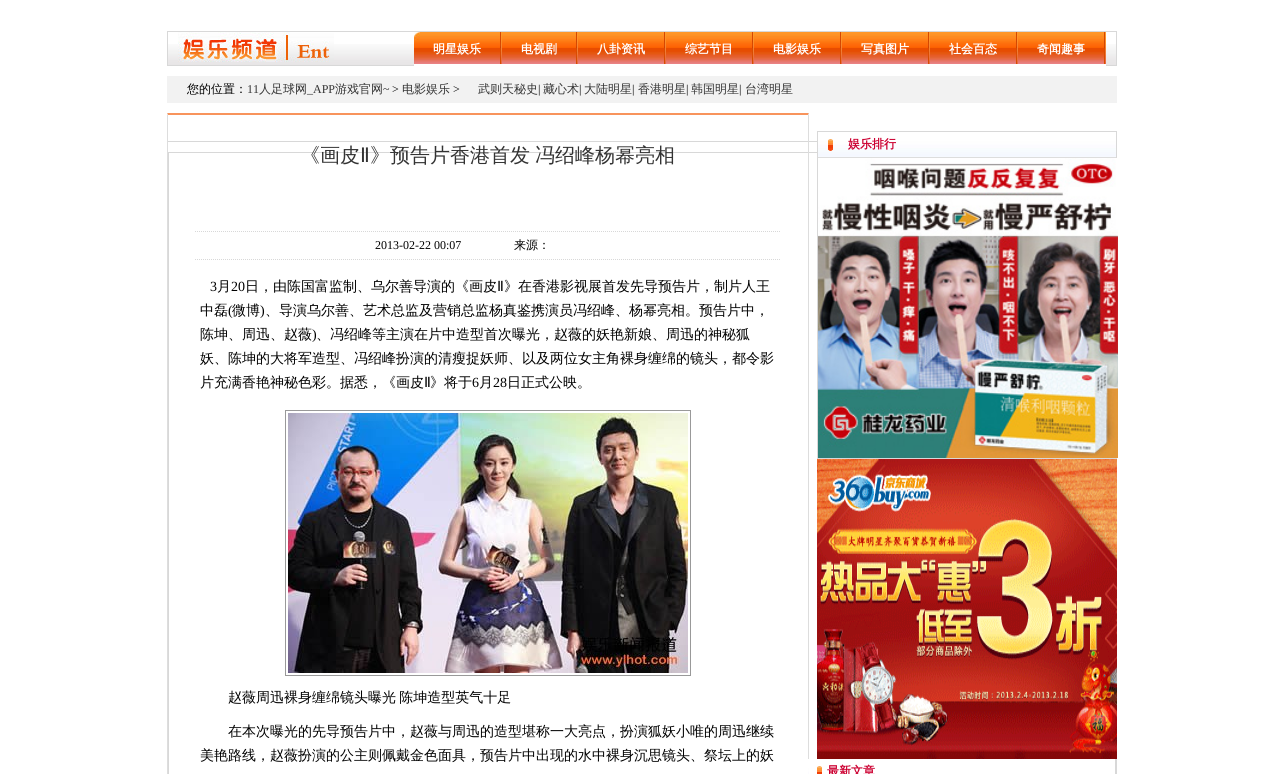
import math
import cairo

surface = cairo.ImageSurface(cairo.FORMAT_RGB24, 1283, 774)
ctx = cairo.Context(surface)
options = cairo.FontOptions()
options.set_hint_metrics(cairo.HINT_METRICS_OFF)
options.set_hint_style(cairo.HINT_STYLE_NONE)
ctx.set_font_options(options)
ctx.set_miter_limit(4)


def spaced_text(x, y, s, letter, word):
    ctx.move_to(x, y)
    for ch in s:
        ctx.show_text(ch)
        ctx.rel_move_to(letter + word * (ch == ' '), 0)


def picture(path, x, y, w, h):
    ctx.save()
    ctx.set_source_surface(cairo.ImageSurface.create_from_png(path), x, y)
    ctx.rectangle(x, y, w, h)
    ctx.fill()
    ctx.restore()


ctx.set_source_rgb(1, 1, 1)
ctx.paint()
picture("img1.png", 168, 44, 948, 21)
ctx.rectangle(167.5, 31.5, 949, 34)
ctx.set_source_rgb(0.847, 0.847, 0.847)
ctx.set_line_width(1)
ctx.stroke()
picture("img2.png", 178, 32, 156, 30)
picture("img3.png", 414, 32, 692, 34)
picture("img4.png", 500, 32, 2, 32)
picture("img5.png", 414, 32, 6, 8)
ctx.select_font_face("WenQuanYi Zen Hei", cairo.FONT_SLANT_NORMAL, cairo.FONT_WEIGHT_BOLD)
ctx.set_font_size(12)
ctx.set_source_rgb(1, 1, 1)
ctx.move_to(433, 53)
ctx.show_text("明星娱乐")
picture("img4.png", 576, 32, 2, 32)
ctx.move_to(521, 53)
ctx.show_text("电视剧")
picture("img4.png", 664, 32, 2, 32)
ctx.move_to(597, 53)
ctx.show_text("八卦资讯")
picture("img4.png", 752, 32, 2, 32)
ctx.move_to(685, 53)
ctx.show_text("综艺节目")
picture("img4.png", 840, 32, 2, 32)
ctx.move_to(773, 53)
ctx.show_text("电影娱乐")
picture("img4.png", 928, 32, 2, 32)
ctx.move_to(861, 53)
ctx.show_text("写真图片")
picture("img4.png", 1016, 32, 2, 32)
ctx.move_to(949, 53)
ctx.show_text("社会百态")
picture("img4.png", 1104, 32, 2, 32)
ctx.move_to(1037, 53)
ctx.show_text("奇闻趣事")
ctx.set_source_rgb(0.949, 0.949, 0.949)
ctx.rectangle(167, 76, 950, 27)
ctx.fill()
ctx.select_font_face("WenQuanYi Zen Hei Medium")
ctx.set_source_rgb(0, 0, 0)
ctx.move_to(187, 93)
ctx.show_text("您的位置：")
ctx.select_font_face("Liberation Serif")
ctx.set_source_rgb(0.2, 0.2, 0.2)
ctx.move_to(247, 93)
ctx.show_text("11")
ctx.select_font_face("WenQuanYi Zen Hei Medium")
ctx.move_to(259, 93)
ctx.show_text("人足球网")
ctx.select_font_face("Liberation Serif")
ctx.move_to(307, 93)
ctx.show_text("_APP")
ctx.select_font_face("WenQuanYi Zen Hei Medium")
ctx.move_to(335, 93)
ctx.show_text("游戏官网")
ctx.select_font_face("Liberation Serif")
ctx.move_to(383, 93)
ctx.show_text("~")
ctx.set_source_rgb(0, 0, 0)
ctx.move_to(392, 93)
ctx.show_text(">")
ctx.select_font_face("WenQuanYi Zen Hei Medium")
ctx.set_source_rgb(0.2, 0.2, 0.2)
ctx.move_to(402, 93)
ctx.show_text("电影娱乐")
ctx.select_font_face("Liberation Serif")
ctx.set_source_rgb(0, 0, 0)
ctx.move_to(453, 93)
ctx.show_text(">")
ctx.select_font_face("WenQuanYi Zen Hei Medium")
ctx.set_source_rgb(0.2, 0.2, 0.2)
ctx.move_to(478, 93)
ctx.show_text("武则天秘史")
ctx.select_font_face("Liberation Serif")
ctx.set_source_rgb(0, 0, 0)
ctx.move_to(538, 93)
ctx.show_text("|")
ctx.select_font_face("WenQuanYi Zen Hei Medium")
ctx.set_source_rgb(0.2, 0.2, 0.2)
ctx.move_to(543, 93)
ctx.show_text("藏心术")
ctx.select_font_face("Liberation Serif")
ctx.set_source_rgb(0, 0, 0)
ctx.move_to(579, 93)
ctx.show_text("|")
ctx.select_font_face("WenQuanYi Zen Hei Medium")
ctx.set_source_rgb(0.2, 0.2, 0.2)
ctx.move_to(584, 93)
ctx.show_text("大陆明星")
ctx.select_font_face("Liberation Serif")
ctx.set_source_rgb(0, 0, 0)
ctx.move_to(632, 93)
ctx.show_text("|")
ctx.select_font_face("WenQuanYi Zen Hei Medium")
ctx.set_source_rgb(0.2, 0.2, 0.2)
ctx.move_to(638, 93)
ctx.show_text("香港明星")
ctx.select_font_face("Liberation Serif")
ctx.set_source_rgb(0, 0, 0)
ctx.move_to(686, 93)
ctx.show_text("|")
ctx.select_font_face("WenQuanYi Zen Hei Medium")
ctx.set_source_rgb(0.2, 0.2, 0.2)
ctx.move_to(691, 93)
ctx.show_text("韩国明星")
ctx.select_font_face("Liberation Serif")
ctx.set_source_rgb(0, 0, 0)
ctx.move_to(739, 93)
ctx.show_text("|")
ctx.select_font_face("WenQuanYi Zen Hei Medium")
ctx.set_source_rgb(0.2, 0.2, 0.2)
ctx.move_to(745, 93)
ctx.show_text("台湾明星")
ctx.set_source_rgb(0.969, 0.58, 0.361)
ctx.new_path()
ctx.move_to(167, 113)
ctx.line_to(809, 113)
ctx.line_to(808, 115)
ctx.line_to(168, 115)
ctx.close_path()
ctx.fill()
ctx.rectangle(167.5, 141.5, 949, 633)
ctx.set_source_rgb(0.847, 0.847, 0.847)
ctx.stroke()
ctx.rectangle(168.5, 152.5, 947, 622)
ctx.stroke()
ctx.set_source_rgb(0.867, 0.867, 0.867)
ctx.new_path()
ctx.move_to(809, 113)
ctx.line_to(809, 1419)
ctx.line_to(808, 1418)
ctx.line_to(808, 115)
ctx.close_path()
ctx.fill()
ctx.new_path()
ctx.move_to(167, 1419)
ctx.line_to(167, 113)
ctx.line_to(168, 115)
ctx.line_to(168, 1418)
ctx.close_path()
ctx.fill()
ctx.set_font_size(20)
ctx.set_source_rgb(0.2, 0.2, 0.2)
ctx.move_to(300, 162)
ctx.show_text("《画皮")
ctx.select_font_face("DejaVu Sans")
ctx.move_to(360, 162)
ctx.show_text("Ⅱ")
ctx.select_font_face("WenQuanYi Zen Hei Medium")
ctx.move_to(370, 162)
ctx.show_text("》预告片香港首发")
ctx.move_to(535, 162)
ctx.show_text("冯绍峰杨幂亮相")
ctx.new_path()
ctx.move_to(195, 231.5)
ctx.line_to(781, 231.5)
ctx.set_source_rgb(0.847, 0.847, 0.847)
ctx.set_dash([1, 1])
ctx.stroke()
ctx.new_path()
ctx.move_to(195, 259.5)
ctx.line_to(781, 259.5)
ctx.stroke()
ctx.select_font_face("Liberation Serif")
ctx.set_font_size(12)
ctx.set_source_rgb(0, 0, 0)
ctx.move_to(375, 249)
ctx.show_text("2013-02-22 00:07")
ctx.select_font_face("WenQuanYi Zen Hei Medium")
ctx.move_to(514, 249)
ctx.show_text("来源：")
ctx.select_font_face("Liberation Serif")
ctx.set_font_size(14)
ctx.move_to(210, 291)
ctx.show_text("3")
ctx.select_font_face("WenQuanYi Zen Hei Medium")
ctx.move_to(217, 291)
ctx.show_text("月")
ctx.select_font_face("Liberation Serif")
ctx.move_to(231, 291)
ctx.show_text("20")
ctx.select_font_face("WenQuanYi Zen Hei Medium")
ctx.move_to(245, 291)
ctx.show_text("日，由陈国富监制、乌尔善导演的《画皮")
ctx.select_font_face("DejaVu Sans")
ctx.move_to(497, 291)
ctx.show_text("Ⅱ")
ctx.select_font_face("WenQuanYi Zen Hei Medium")
ctx.move_to(504, 291)
ctx.show_text("》在香港影视展首发先导预告片，制片人王")
ctx.move_to(200, 315)
ctx.show_text("中磊")
ctx.select_font_face("Liberation Serif")
ctx.move_to(228, 315)
ctx.show_text("(")
ctx.select_font_face("WenQuanYi Zen Hei Medium")
ctx.move_to(232, 315)
ctx.show_text("微博")
ctx.select_font_face("Liberation Serif")
ctx.move_to(260, 315)
ctx.show_text(")")
ctx.select_font_face("WenQuanYi Zen Hei Medium")
ctx.move_to(265, 315)
ctx.show_text("、导演乌尔善、艺术总监及营销总监杨真鉴携演员冯绍峰、杨幂亮相。预告片中，")
ctx.move_to(200, 339)
ctx.show_text("陈坤、周迅、赵薇")
ctx.select_font_face("Liberation Serif")
ctx.move_to(312, 339)
ctx.show_text(")")
ctx.select_font_face("WenQuanYi Zen Hei Medium")
ctx.move_to(316, 339)
ctx.show_text("、冯绍峰等主演在片中造型首次曝光，赵薇的妖艳新娘、周迅的神秘狐")
ctx.move_to(200, 363)
ctx.show_text("妖、陈坤的大将军造型、冯绍峰扮演的清瘦捉妖师、以及两位女主角裸身缠绵的镜头，都令影")
ctx.move_to(200, 387)
ctx.show_text("片充满香艳神秘色彩。据悉，《画皮")
ctx.select_font_face("DejaVu Sans")
ctx.move_to(424, 387)
ctx.show_text("Ⅱ")
ctx.select_font_face("WenQuanYi Zen Hei Medium")
ctx.move_to(430, 387)
ctx.show_text("》将于")
ctx.select_font_face("Liberation Serif")
ctx.move_to(472, 387)
ctx.show_text("6")
ctx.select_font_face("WenQuanYi Zen Hei Medium")
ctx.move_to(479, 387)
ctx.show_text("月")
ctx.select_font_face("Liberation Serif")
ctx.move_to(493, 387)
ctx.show_text("28")
ctx.select_font_face("WenQuanYi Zen Hei Medium")
ctx.move_to(507, 387)
ctx.show_text("日正式公映。")
ctx.rectangle(285.5, 410.5, 405, 265)
ctx.set_source_rgb(0.6, 0.6, 0.6)
ctx.set_dash([])
ctx.stroke()
picture("img6.png", 288, 413, 400, 260)
ctx.set_source_rgb(0, 0, 0)
spaced_text(228, 702, "赵薇周迅裸身缠绵镜头曝光 陈坤造型英气十足", 0, -1)
ctx.move_to(228, 736)
ctx.show_text("在本次曝光的先导预告片中，赵薇与周迅的造型堪称一大亮点，扮演狐妖小唯的周迅继续")
ctx.move_to(200, 760)
ctx.show_text("美艳路线，赵薇扮演的公主则佩戴金色面具，预告片中出现的水中裸身沉思镜头、祭坛上的妖")
ctx.rectangle(817.5, 131.5, 299, 327)
ctx.set_source_rgb(0.847, 0.847, 0.847)
ctx.stroke()
picture("img7.png", 818, 141, 298, 16)
ctx.set_source_rgb(0.867, 0.867, 0.867)
ctx.rectangle(818, 157, 298, 1)
ctx.fill()
picture("img8.png", 828, 139, 5, 12)
ctx.select_font_face("WenQuanYi Zen Hei", cairo.FONT_SLANT_NORMAL, cairo.FONT_WEIGHT_BOLD)
ctx.set_font_size(12)
ctx.set_source_rgb(0.8, 0, 0.192)
ctx.move_to(848, 148)
ctx.show_text("娱乐排行")
picture("img9.png", 818, 158, 300, 300)
picture("img10.png", 817, 459, 300, 300)
picture("img11.png", 808, 759, 1, 15)
picture("img12.png", 817, 766, 5, 8)
ctx.move_to(827, 775)
ctx.show_text("最新文章")
surface.write_to_png("page.png")
